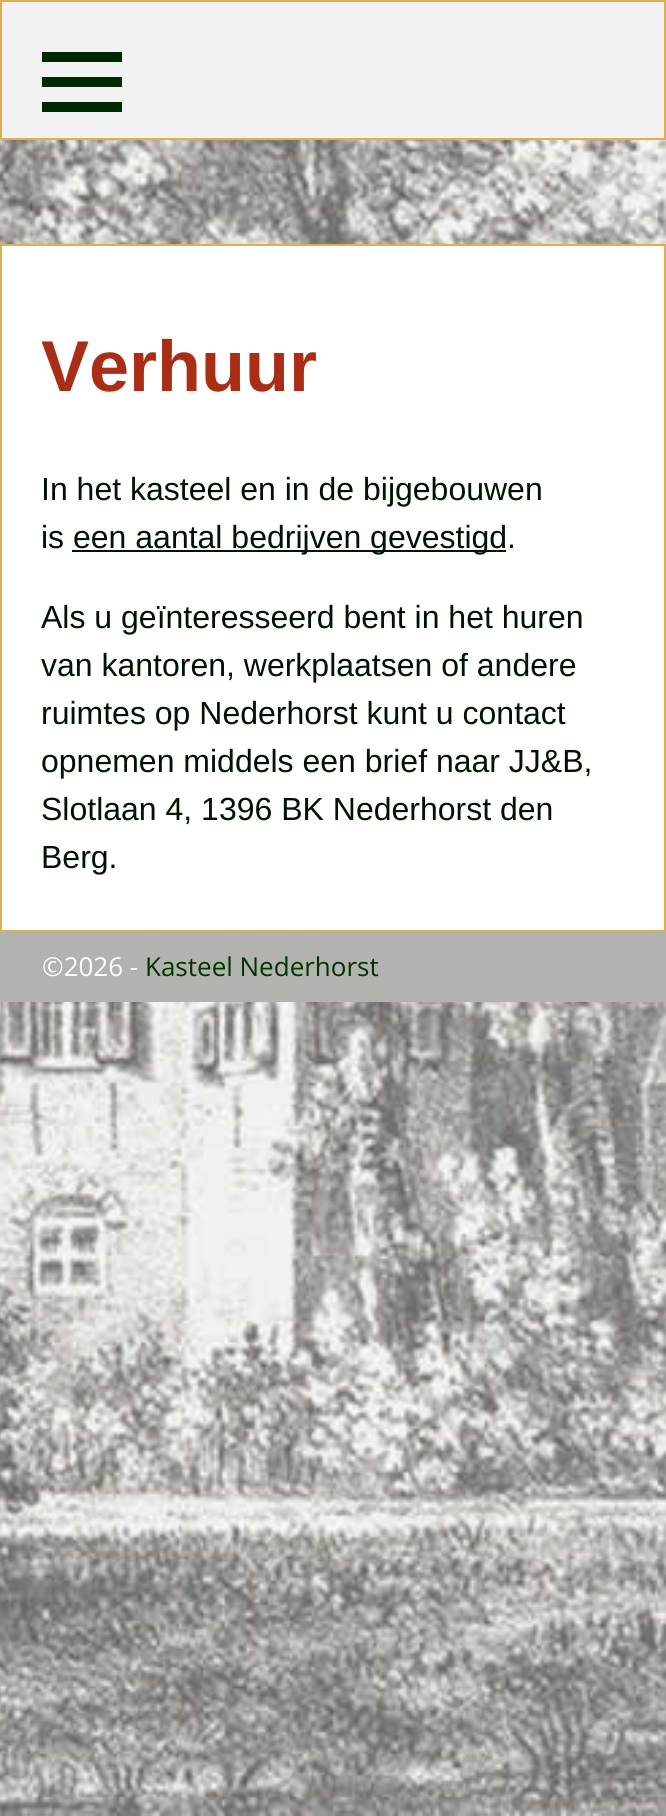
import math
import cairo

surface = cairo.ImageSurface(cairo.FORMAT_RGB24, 666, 1816)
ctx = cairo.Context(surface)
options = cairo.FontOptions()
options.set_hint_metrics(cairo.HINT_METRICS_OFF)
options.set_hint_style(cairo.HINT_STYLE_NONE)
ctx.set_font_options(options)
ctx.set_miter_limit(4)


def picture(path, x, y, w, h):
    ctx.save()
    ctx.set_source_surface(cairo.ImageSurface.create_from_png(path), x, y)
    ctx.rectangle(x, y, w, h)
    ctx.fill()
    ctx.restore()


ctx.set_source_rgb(1, 1, 1)
ctx.paint()
picture("img1.png", 0, 140, 666, 1676)
ctx.set_source_rgb(0.949, 0.949, 0.949)
ctx.rectangle(1, 1, 664, 138)
ctx.fill_preserve()
ctx.set_source_rgb(0.878, 0.682, 0.314)
ctx.stroke()
ctx.set_source_rgb(0.004, 0.161, 0)
ctx.new_path()
ctx.move_to(42, 112)
ctx.line_to(42, 102)
ctx.line_to(122, 102)
ctx.line_to(122, 112)
ctx.close_path()
ctx.move_to(42, 52)
ctx.line_to(122, 52)
ctx.line_to(122, 62)
ctx.line_to(42, 62)
ctx.close_path()
ctx.move_to(42, 87)
ctx.line_to(42, 77)
ctx.line_to(122, 77)
ctx.line_to(122, 87)
ctx.close_path()
ctx.fill()
ctx.set_source_rgb(1, 1, 1)
ctx.rectangle(1, 245, 664, 686)
ctx.fill_preserve()
ctx.set_source_rgb(0.878, 0.682, 0.314)
ctx.stroke()
ctx.select_font_face("Liberation Sans", cairo.FONT_SLANT_NORMAL, cairo.FONT_WEIGHT_BOLD)
ctx.set_font_size(72)
ctx.set_source_rgb(0.667, 0.18, 0.086)
ctx.move_to(41, 391)
ctx.show_text("Verhuur")
ctx.select_font_face("Liberation Sans")
ctx.set_font_size(32)
ctx.set_source_rgb(0, 0.071, 0)
ctx.move_to(41, 500)
ctx.show_text("In het kasteel en in de bijgebouwen")
ctx.move_to(41, 548)
ctx.show_text("is")
ctx.rectangle(72, 550, 434, 2)
ctx.fill()
ctx.move_to(73, 548)
ctx.show_text("een aantal bedrijven gevestigd.")
ctx.move_to(41, 628)
ctx.show_text("Als u geïnteresseerd bent in het huren")
ctx.move_to(41, 676)
ctx.show_text("van kantoren, werkplaatsen of andere")
ctx.move_to(41, 724)
ctx.show_text("ruimtes op Nederhorst kunt u contact")
ctx.move_to(41, 772)
ctx.show_text("opnemen middels een brief naar JJ&B,")
ctx.move_to(41, 820)
ctx.show_text("Slotlaan 4, 1396 BK Nederhorst den")
ctx.move_to(41, 868)
ctx.show_text("Berg.")
ctx.set_source_rgb(0.698, 0.702, 0.682)
ctx.rectangle(0, 932, 666, 70)
ctx.fill()
ctx.select_font_face("Open Sans")
ctx.set_font_size(26)
ctx.set_source_rgb(1, 1, 1)
ctx.move_to(42, 976)
ctx.show_text("©2026 -")
ctx.set_source_rgb(0.004, 0.2, 0)
ctx.move_to(145, 976)
ctx.show_text("Kasteel Nederhorst")
surface.write_to_png("page.png")
